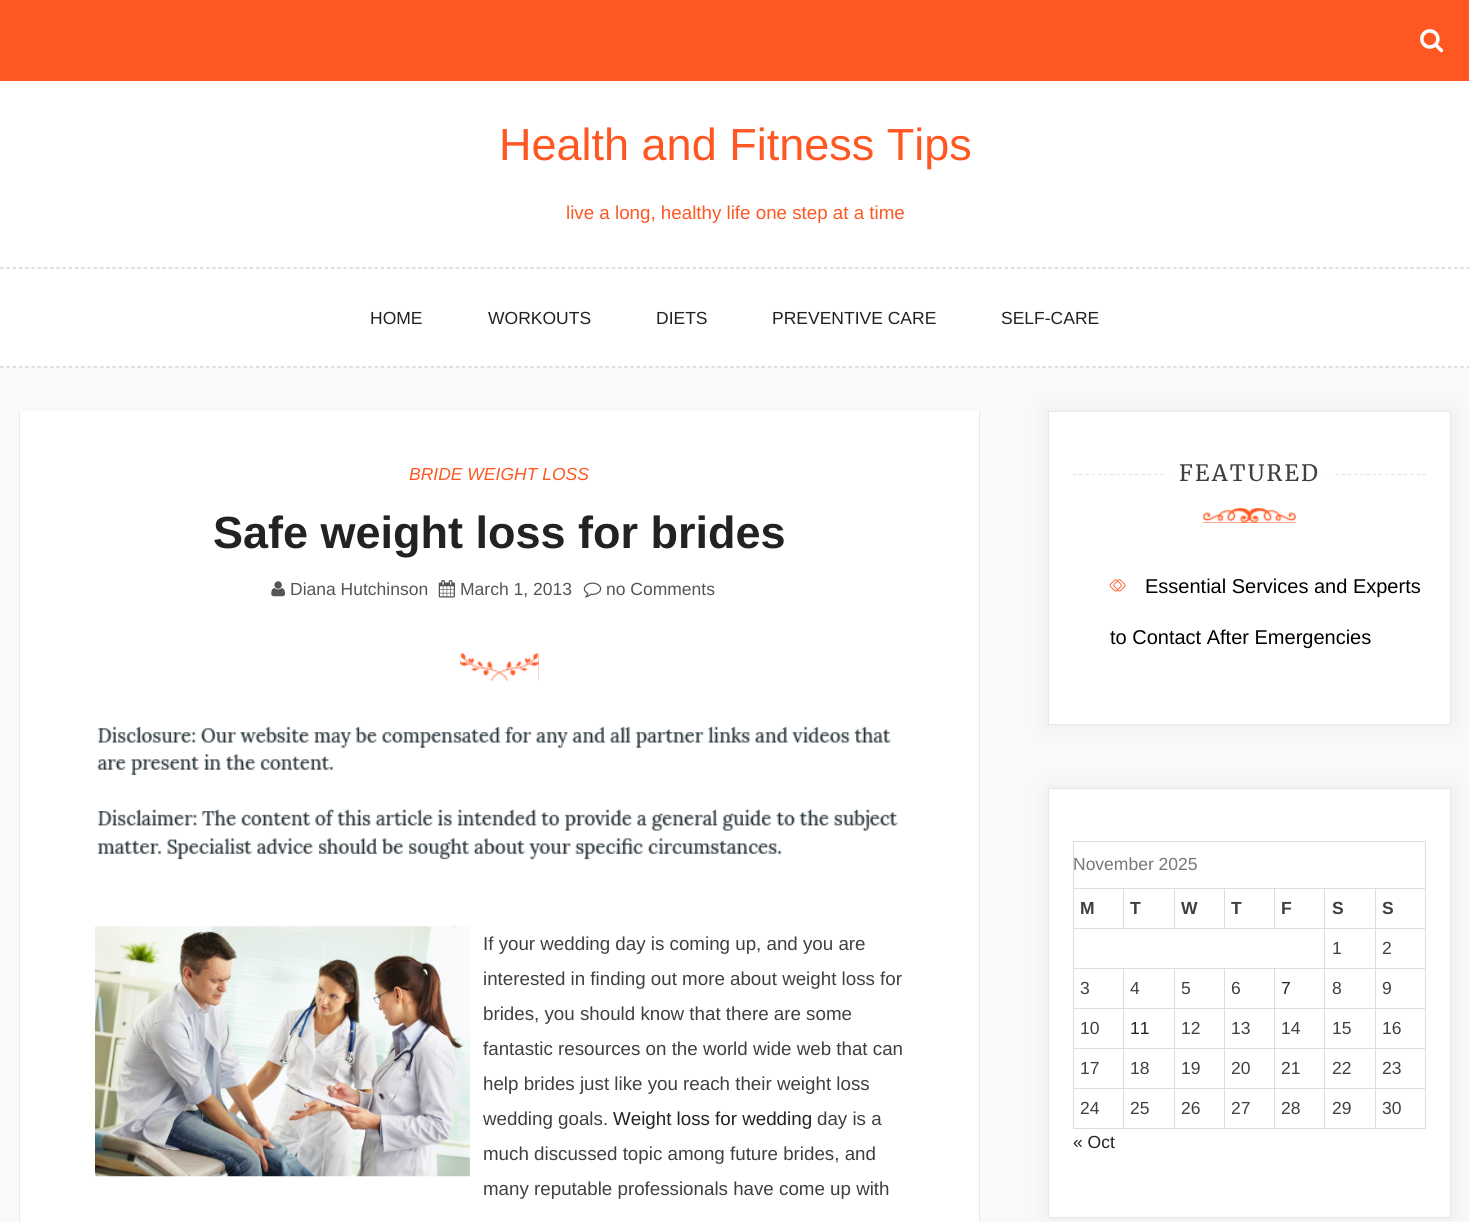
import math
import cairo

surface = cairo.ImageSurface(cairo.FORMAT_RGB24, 1469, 1222)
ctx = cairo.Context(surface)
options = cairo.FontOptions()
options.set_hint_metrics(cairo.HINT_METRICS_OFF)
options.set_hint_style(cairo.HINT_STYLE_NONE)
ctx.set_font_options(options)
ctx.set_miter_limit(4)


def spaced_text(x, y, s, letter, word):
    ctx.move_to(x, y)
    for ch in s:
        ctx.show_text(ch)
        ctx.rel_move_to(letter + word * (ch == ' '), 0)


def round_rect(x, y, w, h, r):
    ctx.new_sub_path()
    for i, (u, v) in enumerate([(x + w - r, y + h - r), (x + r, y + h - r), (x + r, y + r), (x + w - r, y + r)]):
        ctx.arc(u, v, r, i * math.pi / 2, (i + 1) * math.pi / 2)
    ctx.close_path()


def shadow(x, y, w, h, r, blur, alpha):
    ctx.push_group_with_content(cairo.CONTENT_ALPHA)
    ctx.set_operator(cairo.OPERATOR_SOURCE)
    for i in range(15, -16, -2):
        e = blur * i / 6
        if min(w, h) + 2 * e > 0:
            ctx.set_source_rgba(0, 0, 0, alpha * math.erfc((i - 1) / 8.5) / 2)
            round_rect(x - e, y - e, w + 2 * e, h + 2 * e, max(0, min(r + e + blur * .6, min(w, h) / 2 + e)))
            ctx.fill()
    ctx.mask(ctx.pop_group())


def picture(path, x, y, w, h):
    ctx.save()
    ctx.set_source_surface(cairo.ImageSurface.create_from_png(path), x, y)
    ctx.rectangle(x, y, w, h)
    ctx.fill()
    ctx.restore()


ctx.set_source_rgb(0.973, 0.973, 0.973)
ctx.paint()
ctx.set_source_rgb(1, 1, 1)
ctx.rectangle(0, 81, 1469, 287)
ctx.fill()
ctx.set_source_rgb(1, 0.341, 0.133)
ctx.rectangle(0, 0, 1469, 81)
ctx.fill()
picture("img1.png", 1420, 29, 24, 24)
ctx.select_font_face("Liberation Sans")
ctx.set_font_size(45)
ctx.move_to(499, 160)
ctx.show_text("Health and Fitness Tips")
ctx.set_font_size(18.75)
ctx.move_to(566, 219)
ctx.show_text("live a long, healthy life one step at a time")
ctx.new_path()
ctx.move_to(0, 268)
ctx.line_to(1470, 268)
ctx.set_source_rgb(0.8, 0.8, 0.8)
ctx.set_line_width(1.2)
ctx.set_dash([3.75, 2.49])
ctx.stroke()
ctx.new_path()
ctx.move_to(0, 367)
ctx.line_to(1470, 367)
ctx.stroke()
ctx.set_font_size(17.5)
ctx.set_source_rgb(0.133, 0.133, 0.133)
ctx.move_to(370, 324)
ctx.show_text("HOME")
ctx.move_to(488, 324)
ctx.show_text("WORKOUTS")
ctx.move_to(656, 324)
ctx.show_text("DIETS")
ctx.move_to(772, 324)
ctx.show_text("PREVENTIVE CARE")
ctx.move_to(1001, 324)
ctx.show_text("SELF-CARE")
ctx.set_source_rgb(1, 1, 1)
ctx.rectangle(20, 411, 959, 811)
ctx.fill()
ctx.set_source_rgb(0.914, 0.914, 0.914)
ctx.rectangle(979, 411, 1, 811)
ctx.fill()
ctx.rectangle(19, 411, 1, 811)
ctx.fill()
ctx.select_font_face("Liberation Sans", cairo.FONT_SLANT_ITALIC)
ctx.set_source_rgb(1, 0.341, 0.133)
ctx.move_to(409, 480)
ctx.show_text("BRIDE WEIGHT LOSS")
ctx.select_font_face("Liberation Sans", cairo.FONT_SLANT_NORMAL, cairo.FONT_WEIGHT_BOLD)
ctx.set_font_size(45)
ctx.set_source_rgb(0.133, 0.133, 0.133)
ctx.move_to(213, 548)
ctx.show_text("Safe weight loss for brides")
picture("img2.png", 271, 581, 14, 16)
ctx.select_font_face("Liberation Sans")
ctx.set_font_size(17.5)
ctx.set_source_rgb(0.333, 0.333, 0.333)
ctx.move_to(290, 595)
ctx.show_text("Diana Hutchinson")
picture("img3.png", 438, 580, 17, 18)
ctx.move_to(460, 595)
ctx.show_text("March 1, 2013")
picture("img4.png", 583, 582, 19, 16)
ctx.move_to(606, 595)
ctx.show_text("no Comments")
ctx.set_source_rgb(1, 0.341, 0.133)
ctx.rectangle(460, 653, 79, 28)
ctx.fill()
picture("img5.png", 460, 653, 79, 28)
picture("img6.png", 97, 726, 801, 134)
picture("img7.png", 95, 926, 375, 251)
ctx.set_font_size(18.75)
ctx.set_source_rgb(0.251, 0.251, 0.251)
ctx.move_to(483, 950)
ctx.show_text("If your wedding day is coming up, and you are")
ctx.move_to(483, 985)
ctx.show_text("interested in finding out more about weight loss for")
ctx.move_to(483, 1020)
ctx.show_text("brides, you should know that there are some")
ctx.move_to(483, 1055)
ctx.show_text("fantastic resources on the world wide web that can")
ctx.move_to(483, 1090)
ctx.show_text("help brides just like you reach their weight loss")
ctx.move_to(483, 1125)
ctx.show_text("wedding goals.")
ctx.set_source_rgb(0.133, 0.133, 0.133)
ctx.move_to(613, 1125)
ctx.show_text("Weight loss for wedding")
ctx.set_source_rgb(0.251, 0.251, 0.251)
ctx.move_to(817, 1125)
ctx.show_text("day is a")
ctx.move_to(483, 1160)
ctx.show_text("much discussed topic among future brides, and")
ctx.move_to(483, 1195)
ctx.show_text("many reputable professionals have come up with")
ctx.set_source_rgb(0.8, 0.8, 0.8)
shadow(1048, 411, 403, 314, 0, 9.5, 0.34)
ctx.set_source_rgb(1, 1, 1)
ctx.rectangle(1048.5, 411.5, 402, 313)
ctx.fill_preserve()
ctx.set_source_rgb(0.906, 0.906, 0.906)
ctx.set_line_width(1)
ctx.set_dash([])
ctx.stroke()
ctx.new_path()
ctx.move_to(1072.5, 474.5)
ctx.line_to(1426, 474.5)
ctx.set_line_width(1.2)
ctx.set_dash([3.75, 2.5])
ctx.stroke()
ctx.set_source_rgb(1, 1, 1)
ctx.rectangle(1166, 474, 167, 1)
ctx.fill()
ctx.select_font_face("Merriweather")
ctx.set_font_size(22.5)
ctx.set_source_rgb(0.251, 0.251, 0.251)
spaced_text(1179, 481, "FEATURED", 2.25, 0)
ctx.set_source_rgb(1, 0.341, 0.133)
ctx.rectangle(1203, 508, 93, 15)
ctx.fill()
picture("img8.png", 1203, 508, 93, 15)
picture("img9.png", 1109, 579, 13, 13)
picture("img10.png", 1113, 579, 13, 13)
ctx.select_font_face("Liberation Sans")
ctx.set_font_size(20)
ctx.set_source_rgb(0, 0, 0)
ctx.move_to(1145, 593)
ctx.show_text("Essential Services and Experts")
ctx.move_to(1110, 644)
ctx.show_text("to Contact After Emergencies")
ctx.set_source_rgb(0.8, 0.8, 0.8)
shadow(1048, 788, 403, 430, 0, 9.5, 0.34)
ctx.set_source_rgb(1, 1, 1)
ctx.rectangle(1048.5, 788.5, 402, 429)
ctx.fill_preserve()
ctx.set_source_rgb(0.906, 0.906, 0.906)
ctx.set_line_width(1)
ctx.set_dash([])
ctx.stroke()
ctx.set_source_rgb(0.867, 0.867, 0.867)
ctx.rectangle(1073, 841, 353, 1)
ctx.fill()
ctx.rectangle(1425, 841, 1, 288)
ctx.fill()
ctx.rectangle(1073, 1128, 353, 1)
ctx.fill()
ctx.rectangle(1073, 841, 1, 288)
ctx.fill()
ctx.set_font_size(17.5)
ctx.set_source_rgb(0.467, 0.467, 0.467)
ctx.move_to(1073, 870)
ctx.show_text("November 2025")
ctx.set_source_rgb(0.867, 0.867, 0.867)
ctx.rectangle(1375, 888, 51, 1)
ctx.fill()
ctx.rectangle(1375, 928, 51, 1)
ctx.fill()
ctx.rectangle(1375, 968, 51, 1)
ctx.fill()
ctx.rectangle(1375, 1008, 51, 1)
ctx.fill()
ctx.rectangle(1375, 1048, 51, 1)
ctx.fill()
ctx.rectangle(1375, 1088, 51, 1)
ctx.fill()
ctx.rectangle(1375, 1088, 1, 41)
ctx.fill()
ctx.rectangle(1324, 1088, 52, 1)
ctx.fill()
ctx.rectangle(1375, 1048, 1, 41)
ctx.fill()
ctx.rectangle(1324, 1048, 52, 1)
ctx.fill()
ctx.rectangle(1375, 1008, 1, 41)
ctx.fill()
ctx.rectangle(1324, 1008, 52, 1)
ctx.fill()
ctx.rectangle(1375, 968, 1, 41)
ctx.fill()
ctx.rectangle(1324, 968, 52, 1)
ctx.fill()
ctx.rectangle(1375, 928, 1, 41)
ctx.fill()
ctx.rectangle(1324, 928, 52, 1)
ctx.fill()
ctx.rectangle(1375, 888, 1, 41)
ctx.fill()
ctx.rectangle(1324, 888, 52, 1)
ctx.fill()
ctx.rectangle(1324, 1088, 1, 41)
ctx.fill()
ctx.rectangle(1274, 1088, 51, 1)
ctx.fill()
ctx.rectangle(1324, 1048, 1, 41)
ctx.fill()
ctx.rectangle(1274, 1048, 51, 1)
ctx.fill()
ctx.rectangle(1324, 1008, 1, 41)
ctx.fill()
ctx.rectangle(1274, 1008, 51, 1)
ctx.fill()
ctx.rectangle(1324, 968, 1, 41)
ctx.fill()
ctx.rectangle(1274, 968, 51, 1)
ctx.fill()
ctx.rectangle(1324, 928, 1, 41)
ctx.fill()
ctx.rectangle(1073, 928, 252, 1)
ctx.fill()
ctx.rectangle(1324, 888, 1, 41)
ctx.fill()
ctx.rectangle(1274, 888, 51, 1)
ctx.fill()
ctx.rectangle(1274, 888, 1, 41)
ctx.fill()
ctx.rectangle(1224, 888, 51, 1)
ctx.fill()
ctx.rectangle(1224, 888, 1, 41)
ctx.fill()
ctx.rectangle(1174, 888, 51, 1)
ctx.fill()
ctx.rectangle(1174, 888, 1, 41)
ctx.fill()
ctx.rectangle(1123, 888, 52, 1)
ctx.fill()
ctx.rectangle(1123, 888, 1, 41)
ctx.fill()
ctx.rectangle(1073, 888, 51, 1)
ctx.fill()
ctx.select_font_face("Liberation Sans", cairo.FONT_SLANT_NORMAL, cairo.FONT_WEIGHT_BOLD)
ctx.set_source_rgb(0.251, 0.251, 0.251)
ctx.move_to(1080, 914)
ctx.show_text("M")
ctx.move_to(1130, 914)
ctx.show_text("T")
ctx.move_to(1181, 914)
ctx.show_text("W")
ctx.move_to(1231, 914)
ctx.show_text("T")
ctx.move_to(1281, 914)
ctx.show_text("F")
ctx.move_to(1332, 914)
ctx.show_text("S")
ctx.move_to(1382, 914)
ctx.show_text("S")
ctx.select_font_face("Liberation Sans")
ctx.move_to(1332, 954)
ctx.show_text("1")
ctx.move_to(1382, 954)
ctx.show_text("2")
ctx.set_source_rgb(0.867, 0.867, 0.867)
ctx.rectangle(1274, 1088, 1, 41)
ctx.fill()
ctx.rectangle(1224, 1088, 51, 1)
ctx.fill()
ctx.rectangle(1274, 1048, 1, 41)
ctx.fill()
ctx.rectangle(1224, 1048, 51, 1)
ctx.fill()
ctx.rectangle(1274, 1008, 1, 41)
ctx.fill()
ctx.rectangle(1224, 1008, 51, 1)
ctx.fill()
ctx.rectangle(1274, 968, 1, 41)
ctx.fill()
ctx.rectangle(1224, 968, 51, 1)
ctx.fill()
ctx.rectangle(1224, 1088, 1, 41)
ctx.fill()
ctx.rectangle(1174, 1088, 51, 1)
ctx.fill()
ctx.rectangle(1224, 1048, 1, 41)
ctx.fill()
ctx.rectangle(1174, 1048, 51, 1)
ctx.fill()
ctx.rectangle(1224, 1008, 1, 41)
ctx.fill()
ctx.rectangle(1174, 1008, 51, 1)
ctx.fill()
ctx.rectangle(1224, 968, 1, 41)
ctx.fill()
ctx.rectangle(1174, 968, 51, 1)
ctx.fill()
ctx.rectangle(1174, 1088, 1, 41)
ctx.fill()
ctx.rectangle(1123, 1088, 52, 1)
ctx.fill()
ctx.rectangle(1174, 1048, 1, 41)
ctx.fill()
ctx.rectangle(1123, 1048, 52, 1)
ctx.fill()
ctx.rectangle(1174, 1008, 1, 41)
ctx.fill()
ctx.rectangle(1123, 1008, 52, 1)
ctx.fill()
ctx.rectangle(1174, 968, 1, 41)
ctx.fill()
ctx.rectangle(1123, 968, 52, 1)
ctx.fill()
ctx.rectangle(1123, 1088, 1, 41)
ctx.fill()
ctx.rectangle(1073, 1088, 51, 1)
ctx.fill()
ctx.rectangle(1123, 1048, 1, 41)
ctx.fill()
ctx.rectangle(1073, 1048, 51, 1)
ctx.fill()
ctx.rectangle(1123, 1008, 1, 41)
ctx.fill()
ctx.rectangle(1073, 1008, 51, 1)
ctx.fill()
ctx.rectangle(1123, 968, 1, 41)
ctx.fill()
ctx.rectangle(1073, 968, 51, 1)
ctx.fill()
ctx.set_source_rgb(0.251, 0.251, 0.251)
ctx.move_to(1080, 994)
ctx.show_text("3")
ctx.move_to(1130, 994)
ctx.show_text("4")
ctx.move_to(1181, 994)
ctx.show_text("5")
ctx.move_to(1231, 994)
ctx.show_text("6")
ctx.set_source_rgb(0.133, 0.133, 0.133)
ctx.move_to(1281, 994)
ctx.show_text("7")
ctx.set_source_rgb(0.251, 0.251, 0.251)
ctx.move_to(1332, 994)
ctx.show_text("8")
ctx.move_to(1382, 994)
ctx.show_text("9")
ctx.move_to(1080, 1034)
ctx.show_text("10")
ctx.set_source_rgb(0.133, 0.133, 0.133)
ctx.move_to(1130, 1034)
ctx.show_text("11")
ctx.set_source_rgb(0.251, 0.251, 0.251)
ctx.move_to(1181, 1034)
ctx.show_text("12")
ctx.move_to(1231, 1034)
ctx.show_text("13")
ctx.move_to(1281, 1034)
ctx.show_text("14")
ctx.move_to(1332, 1034)
ctx.show_text("15")
ctx.move_to(1382, 1034)
ctx.show_text("16")
ctx.move_to(1080, 1074)
ctx.show_text("17")
ctx.move_to(1130, 1074)
ctx.show_text("18")
ctx.move_to(1181, 1074)
ctx.show_text("19")
ctx.move_to(1231, 1074)
ctx.show_text("20")
ctx.move_to(1281, 1074)
ctx.show_text("21")
ctx.move_to(1332, 1074)
ctx.show_text("22")
ctx.move_to(1382, 1074)
ctx.show_text("23")
ctx.move_to(1080, 1114)
ctx.show_text("24")
ctx.move_to(1130, 1114)
ctx.show_text("25")
ctx.move_to(1181, 1114)
ctx.show_text("26")
ctx.move_to(1231, 1114)
ctx.show_text("27")
ctx.move_to(1281, 1114)
ctx.show_text("28")
ctx.move_to(1332, 1114)
ctx.show_text("29")
ctx.move_to(1382, 1114)
ctx.show_text("30")
ctx.set_source_rgb(0.133, 0.133, 0.133)
ctx.move_to(1073, 1148)
ctx.show_text("« Oct")
surface.write_to_png("page.png")
